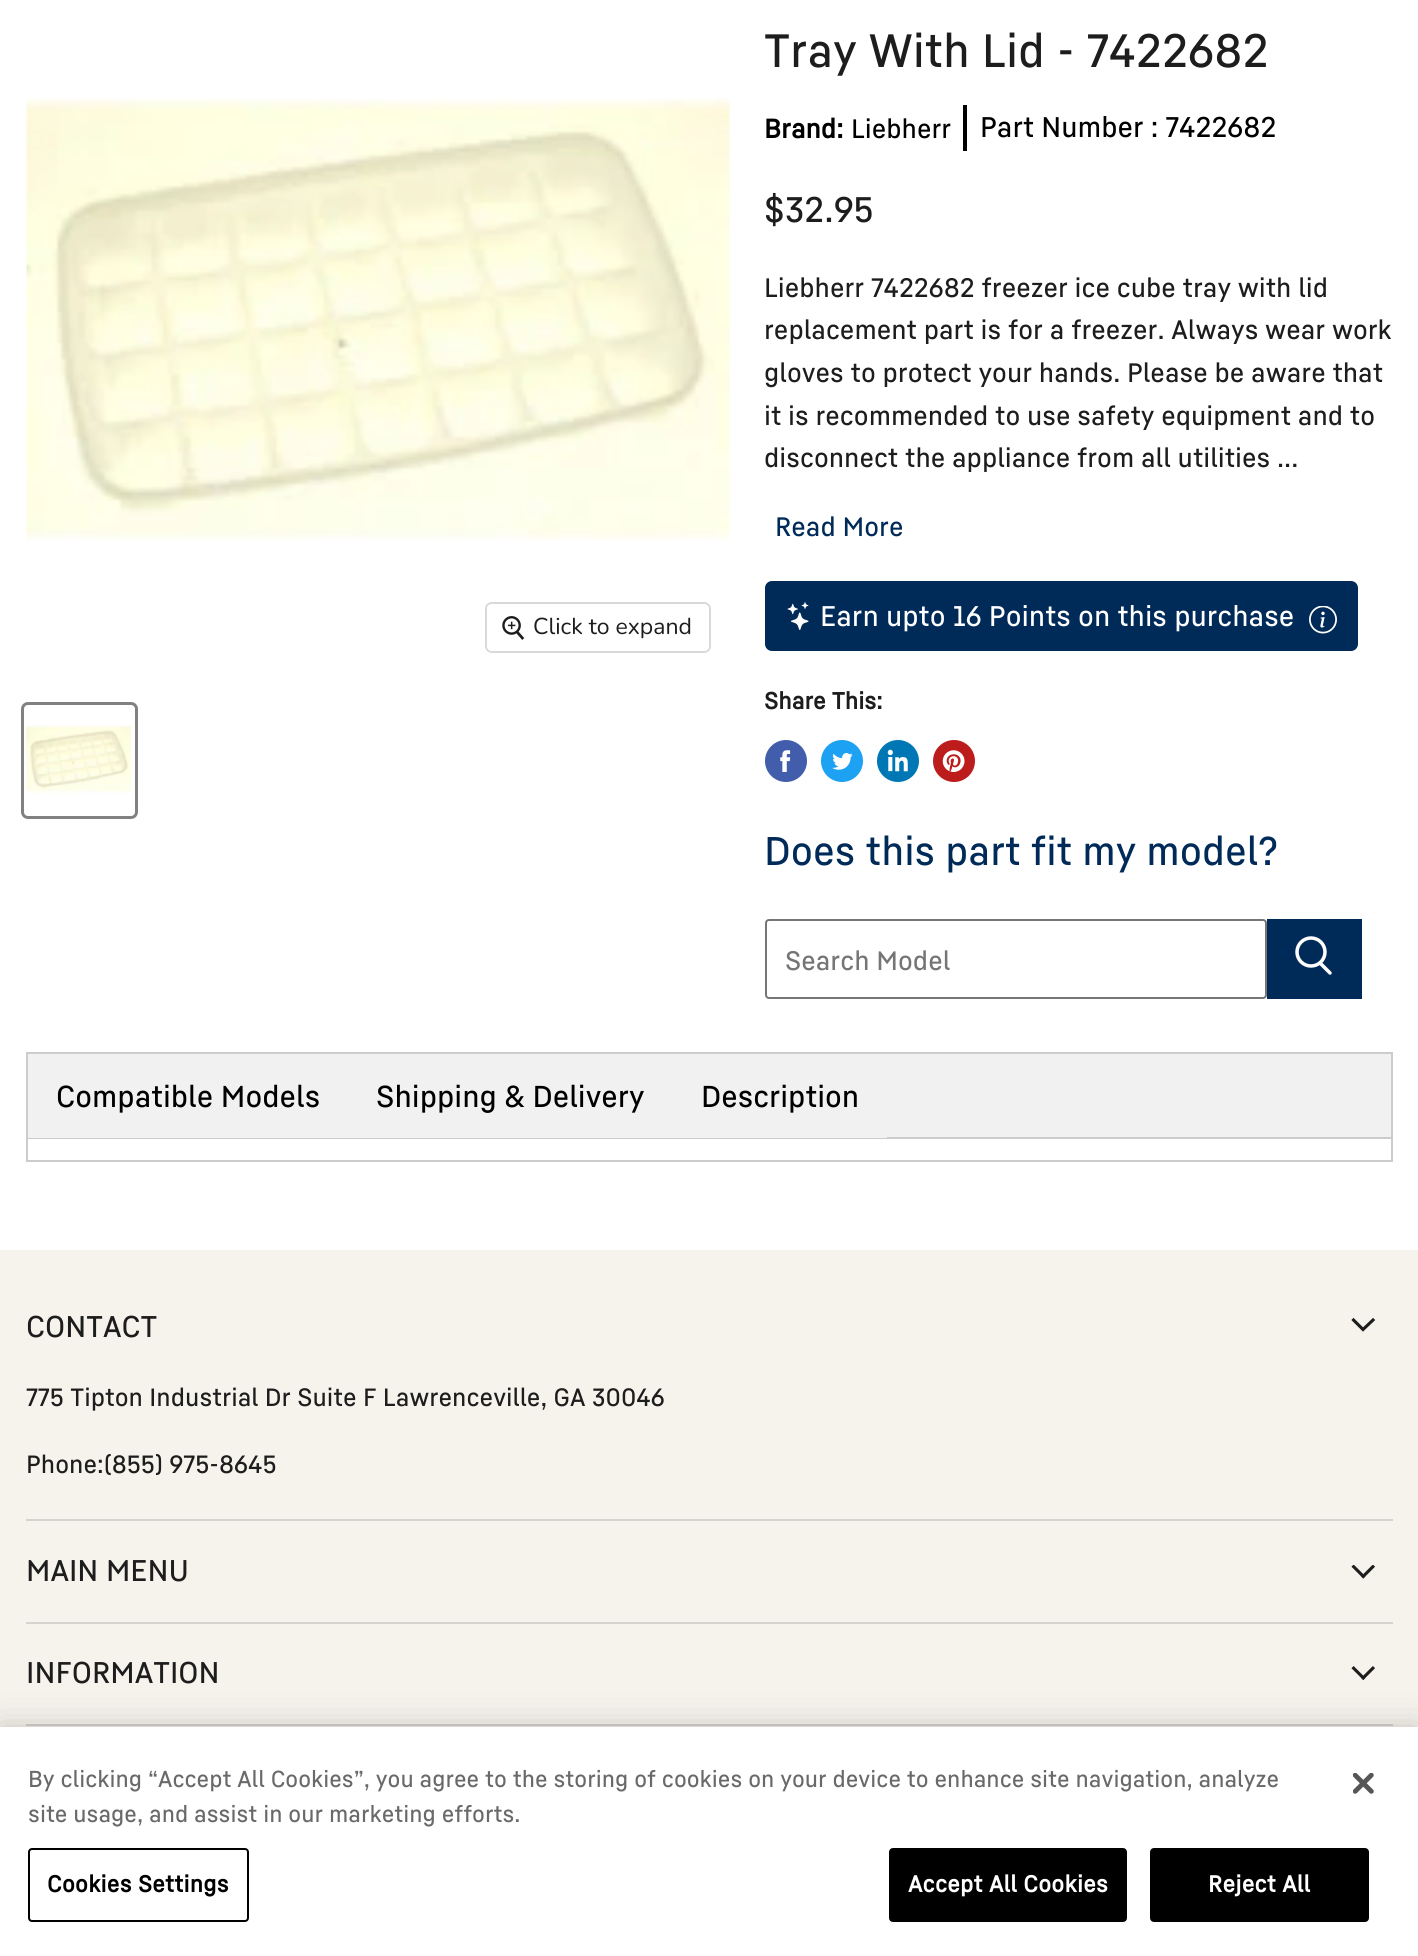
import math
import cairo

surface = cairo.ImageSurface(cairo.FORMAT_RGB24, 1418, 1956)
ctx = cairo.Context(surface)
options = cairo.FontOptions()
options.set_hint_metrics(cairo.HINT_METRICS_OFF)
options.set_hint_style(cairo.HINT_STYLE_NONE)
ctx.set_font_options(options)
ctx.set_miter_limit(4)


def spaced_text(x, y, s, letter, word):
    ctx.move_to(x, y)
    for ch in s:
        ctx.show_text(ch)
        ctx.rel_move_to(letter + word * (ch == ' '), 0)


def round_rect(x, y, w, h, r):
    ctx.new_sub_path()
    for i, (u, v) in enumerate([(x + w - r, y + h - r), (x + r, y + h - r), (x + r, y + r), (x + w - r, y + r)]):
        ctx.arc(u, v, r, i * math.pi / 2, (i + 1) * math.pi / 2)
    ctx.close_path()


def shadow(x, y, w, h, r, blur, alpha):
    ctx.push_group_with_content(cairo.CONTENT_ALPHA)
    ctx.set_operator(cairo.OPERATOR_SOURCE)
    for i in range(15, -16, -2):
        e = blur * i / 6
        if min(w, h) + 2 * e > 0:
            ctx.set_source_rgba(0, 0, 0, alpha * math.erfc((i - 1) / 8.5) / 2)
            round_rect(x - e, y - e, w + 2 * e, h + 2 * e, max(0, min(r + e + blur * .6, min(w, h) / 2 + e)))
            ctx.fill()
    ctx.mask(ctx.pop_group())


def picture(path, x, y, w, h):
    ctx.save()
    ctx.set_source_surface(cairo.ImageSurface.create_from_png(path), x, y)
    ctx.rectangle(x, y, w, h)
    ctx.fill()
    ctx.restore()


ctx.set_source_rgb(1, 1, 1)
ctx.paint()
picture("img1.png", 26, 98, 704, 443)
round_rect(486, 603, 224, 49, 6)
ctx.set_source_rgb(0.851, 0.851, 0.851)
ctx.stroke()
ctx.set_source_rgba(1, 1, 1, 0.9)
round_rect(487, 604, 222, 47, 5)
ctx.fill()
picture("img2.png", 502, 616, 23, 24)
ctx.select_font_face("Nunito")
ctx.set_font_size(23)
ctx.set_source_rgb(0.114, 0.114, 0.114)
ctx.move_to(533, 634)
ctx.show_text("Click to expand")
round_rect(22.5, 703.5, 114, 114, 5.5)
ctx.set_source_rgb(0.506, 0.506, 0.506)
ctx.set_line_width(3)
ctx.stroke()
picture("img3.png", 26, 725, 106, 69)
ctx.select_font_face("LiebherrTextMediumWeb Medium")
ctx.set_font_size(46)
ctx.set_source_rgb(0.114, 0.114, 0.114)
ctx.move_to(764, 67)
ctx.show_text("Tray With Lid - 7422682")
ctx.select_font_face("LiebherrTextMediumWeb", cairo.FONT_SLANT_NORMAL, cairo.FONT_WEIGHT_BOLD)
ctx.set_font_size(26.25)
ctx.set_source_rgb(0, 0, 0)
ctx.move_to(764, 138)
ctx.show_text("Brand:")
ctx.select_font_face("LiebherrTextMediumWeb Medium")
ctx.move_to(851, 138)
ctx.show_text("Liebherr")
ctx.rectangle(963, 105, 4, 46)
ctx.fill()
ctx.set_font_size(28)
ctx.move_to(980, 137)
ctx.show_text("Part Number : 7422682")
ctx.set_font_size(35)
ctx.set_source_rgb(0.114, 0.114, 0.114)
ctx.move_to(764, 222)
ctx.show_text("$32.95")
ctx.set_font_size(26.25)
ctx.move_to(764, 297)
ctx.show_text("Liebherr 7422682 freezer ice cube tray with lid")
ctx.move_to(764, 339)
ctx.show_text("replacement part is for a freezer. Always wear work")
ctx.move_to(764, 382)
ctx.show_text("gloves to protect your hands. Please be aware that")
ctx.move_to(764, 425)
ctx.show_text("it is recommended to use safety equipment and to")
ctx.move_to(764, 467)
ctx.show_text("disconnect the appliance from all utilities ...")
ctx.set_source_rgb(0, 0.169, 0.349)
ctx.move_to(775, 536)
ctx.show_text("Read More")
round_rect(765, 581, 593, 70, 7)
ctx.fill()
picture("img4.png", 787, 602, 22, 28)
ctx.set_font_size(28)
ctx.set_source_rgb(1, 1, 1)
ctx.move_to(820, 626)
ctx.show_text("Earn upto 16 Points on this purchase")
picture("img5.png", 1309, 606, 28, 28)
ctx.select_font_face("LiebherrTextMediumWeb", cairo.FONT_SLANT_NORMAL, cairo.FONT_WEIGHT_BOLD)
ctx.set_font_size(23)
ctx.set_source_rgb(0.114, 0.114, 0.114)
ctx.move_to(764, 709)
ctx.show_text("Share This:")
ctx.set_source_rgb(0.259, 0.365, 0.671)
ctx.new_path()
ctx.arc(786, 761, 21, 0, 2 * math.pi)
ctx.fill()
picture("img6.png", 780, 750, 11, 22)
ctx.set_source_rgb(0.114, 0.631, 0.949)
ctx.arc(842, 761, 21, 0, 2 * math.pi)
ctx.fill()
picture("img7.png", 832, 753, 21, 17)
ctx.set_source_rgb(0, 0.467, 0.71)
ctx.arc(898, 761, 21, 0, 2 * math.pi)
ctx.fill()
picture("img8.png", 887, 749, 21, 23)
ctx.set_source_rgb(0.741, 0.11, 0.11)
ctx.arc(954, 761, 21, 0, 2 * math.pi)
ctx.fill()
picture("img9.png", 942, 750, 23, 22)
ctx.select_font_face("LiebherrTextMediumWeb Medium")
ctx.set_font_size(39.4)
ctx.set_source_rgb(0, 0.169, 0.349)
ctx.move_to(764, 865)
ctx.show_text("Does this part fit my model?")
round_rect(766, 920, 500, 78, 3)
ctx.set_source_rgb(0.463, 0.463, 0.463)
ctx.set_line_width(2)
ctx.stroke()
ctx.set_font_size(26.25)
ctx.set_source_rgb(0.459, 0.459, 0.459)
ctx.move_to(785, 970)
ctx.show_text("Search Model")
ctx.set_source_rgb(0, 0.169, 0.349)
ctx.rectangle(1267, 919, 95, 80)
ctx.fill()
ctx.new_path()
ctx.move_to(1330, 973)
ctx.line_to(1320.5, 963.5)
ctx.set_source_rgb(1, 1, 1)
ctx.set_line_width(3.5)
ctx.set_line_cap(cairo.LINE_CAP_ROUND)
ctx.stroke()
ctx.arc(1311, 952, 14, 0, 2 * math.pi)
ctx.set_line_cap(cairo.LINE_CAP_BUTT)
ctx.stroke()
ctx.set_source_rgb(0.945, 0.945, 0.945)
ctx.rectangle(887, 1054, 504, 83)
ctx.fill()
ctx.rectangle(27, 1053, 1365, 85)
ctx.set_source_rgb(0.8, 0.8, 0.8)
ctx.set_line_width(2)
ctx.stroke()
ctx.set_source_rgb(0.945, 0.945, 0.945)
ctx.rectangle(28, 1054, 859, 84)
ctx.fill()
ctx.set_font_size(29.75)
ctx.set_source_rgb(0, 0, 0)
ctx.move_to(56, 1107)
ctx.show_text("Compatible Models")
ctx.move_to(376, 1107)
ctx.show_text("Shipping & Delivery")
ctx.move_to(701, 1107)
ctx.show_text("Description")
ctx.set_source_rgb(0.8, 0.8, 0.8)
ctx.rectangle(1391, 1139, 2, 23)
ctx.fill()
ctx.rectangle(26, 1160, 1367, 2)
ctx.fill()
ctx.rectangle(26, 1139, 2, 23)
ctx.fill()
ctx.set_source_rgb(0.961, 0.953, 0.929)
ctx.rectangle(0, 1250, 1418, 477)
ctx.fill()
ctx.set_source_rgb(0.835, 0.827, 0.808)
ctx.rectangle(26, 1519, 1367, 2)
ctx.fill()
ctx.set_font_size(29.5)
ctx.set_source_rgb(0.114, 0.114, 0.114)
ctx.move_to(26, 1337)
ctx.show_text("CONTACT")
ctx.new_path()
ctx.move_to(1363, 1329.5)
ctx.line_to(1373, 1320)
ctx.move_to(1363, 1329.5)
ctx.line_to(1353.5, 1320)
ctx.set_line_width(3.1)
ctx.set_line_cap(cairo.LINE_CAP_SQUARE)
ctx.stroke()
ctx.set_font_size(24.6)
ctx.move_to(26, 1406)
ctx.show_text("775 Tipton Industrial Dr Suite F Lawrenceville, GA 30046")
ctx.move_to(26, 1473)
ctx.show_text("Phone:(855) 975-8645")
ctx.set_source_rgb(0.835, 0.827, 0.808)
ctx.rectangle(26, 1622, 1367, 2)
ctx.fill()
ctx.set_font_size(29.5)
ctx.set_source_rgb(0.114, 0.114, 0.114)
ctx.move_to(26, 1581)
ctx.show_text("MAIN MENU")
picture("img10.png", 1351, 1565, 24, 14)
ctx.set_source_rgb(0.835, 0.827, 0.808)
ctx.rectangle(26, 1724, 1367, 2)
ctx.fill()
ctx.set_source_rgb(0.114, 0.114, 0.114)
ctx.move_to(26, 1683)
ctx.show_text("INFORMATION")
picture("img11.png", 1351, 1666, 24, 14)
ctx.set_source_rgb(0, 0, 0)
shadow(0, 1727, 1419, 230, 0, 16, 0.2)
ctx.set_source_rgb(1, 1, 1)
ctx.rectangle(0, 1727, 1418, 229)
ctx.fill()
ctx.set_font_size(22.75)
ctx.set_source_rgb(0.412, 0.412, 0.412)
ctx.move_to(28, 1787)
ctx.show_text("By clicking “Accept All Cookies”, you agree to the storing of cookies on your device to enhance site navigation, analyze")
ctx.move_to(28, 1822)
ctx.show_text("site usage, and assist in our marketing efforts.")
round_rect(29, 1849, 219, 72, 3)
ctx.set_source_rgb(0, 0, 0)
ctx.set_line_width(2)
ctx.set_line_cap(cairo.LINE_CAP_BUTT)
ctx.stroke()
ctx.select_font_face("LiebherrTextMediumWeb", cairo.FONT_SLANT_NORMAL, cairo.FONT_WEIGHT_BOLD)
spaced_text(47, 1892, "Cookies Settings", 0.25, 0)
round_rect(890, 1849, 236, 72, 3)
ctx.fill_preserve()
ctx.stroke()
ctx.set_source_rgb(1, 1, 1)
spaced_text(908, 1892, "Accept All Cookies", 0.25, 0)
ctx.set_source_rgb(0, 0, 0)
round_rect(1151, 1849, 217, 72, 3)
ctx.fill_preserve()
ctx.stroke()
ctx.set_source_rgb(1, 1, 1)
spaced_text(1208, 1892, "Reject All", 0.25, 0)
picture("img12.png", 1353, 1773, 21, 21)
surface.write_to_png("page.png")
